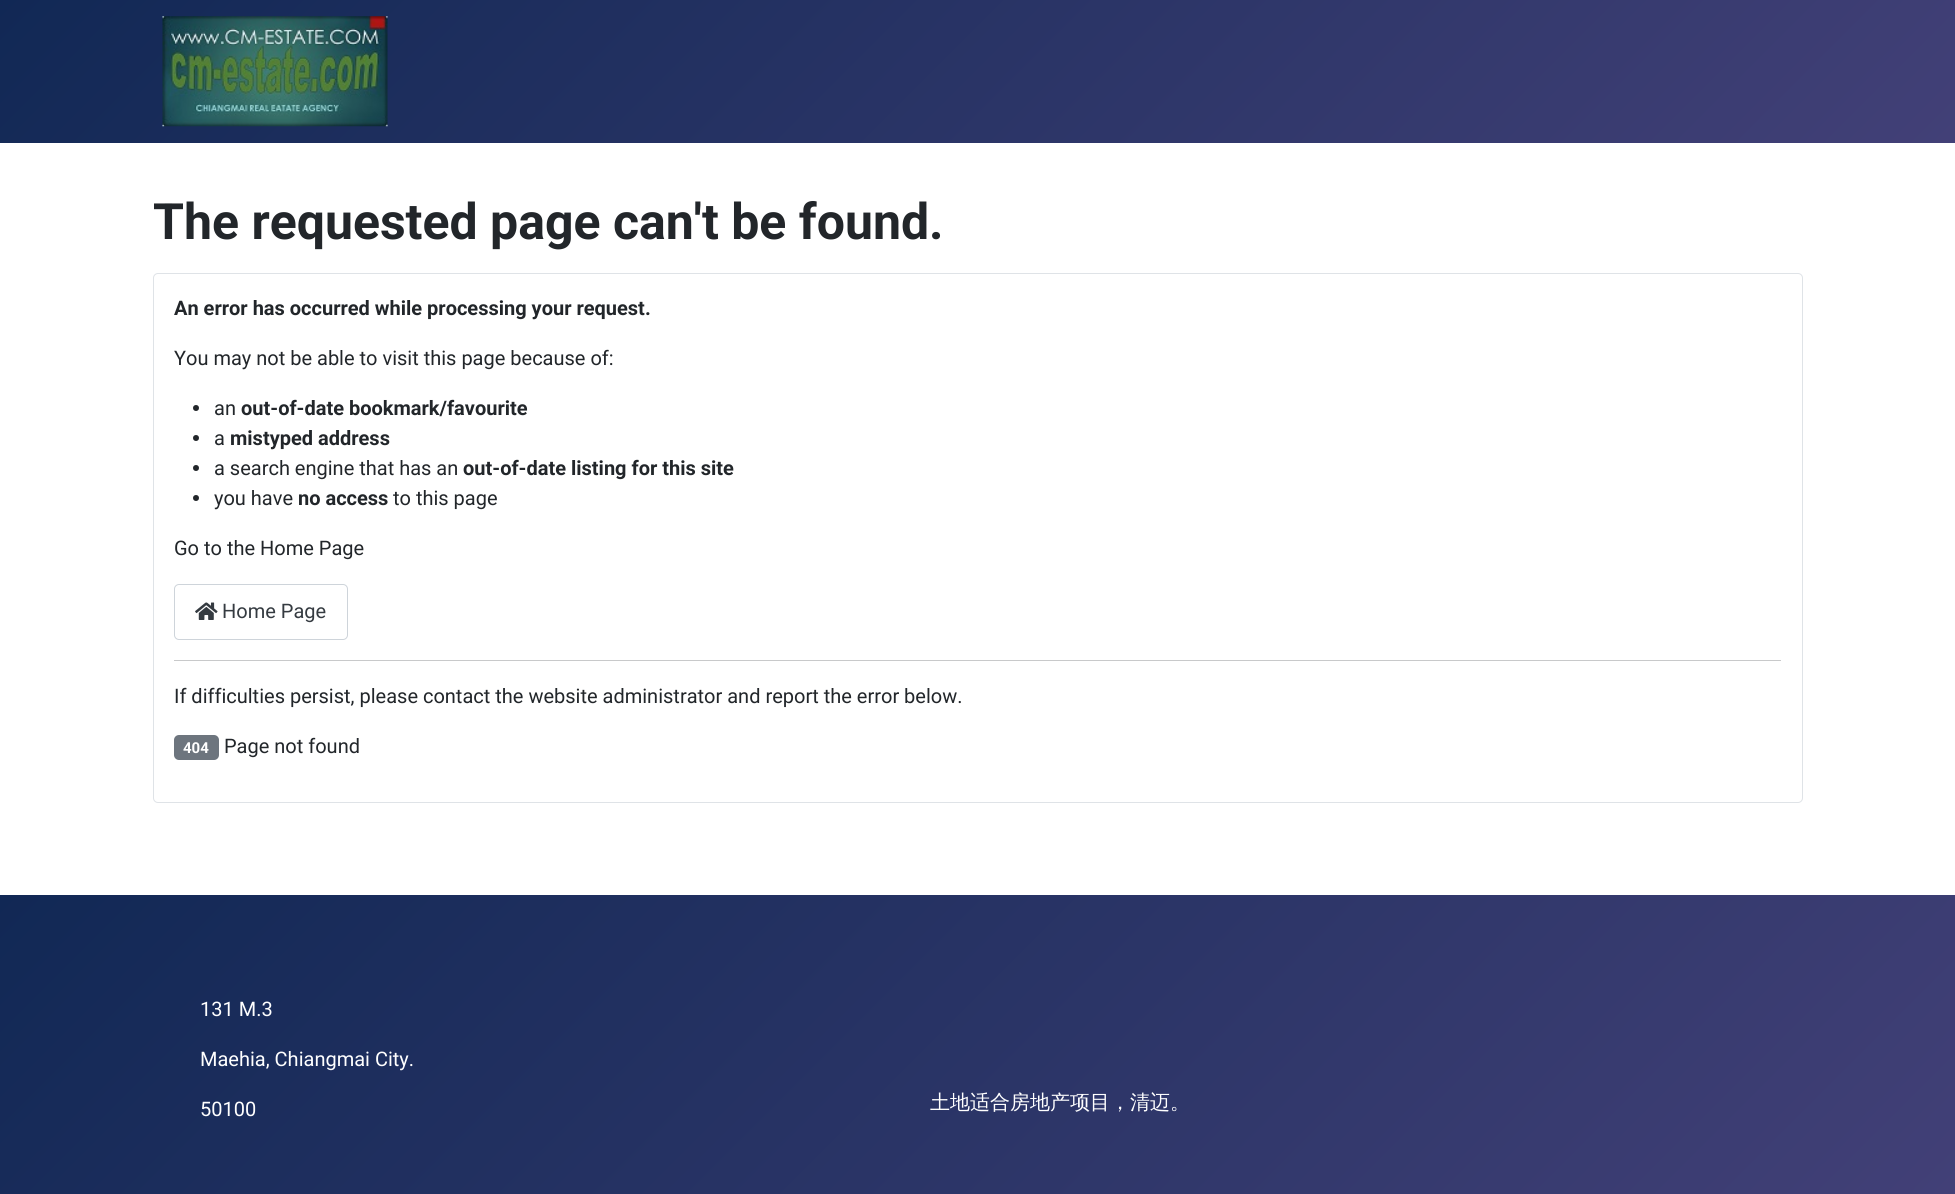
import math
import cairo

surface = cairo.ImageSurface(cairo.FORMAT_RGB24, 1955, 1194)
ctx = cairo.Context(surface)
options = cairo.FontOptions()
options.set_hint_metrics(cairo.HINT_METRICS_OFF)
options.set_hint_style(cairo.HINT_STYLE_NONE)
ctx.set_font_options(options)
ctx.set_miter_limit(4)


def round_rect(x, y, w, h, r):
    ctx.new_sub_path()
    for i, (u, v) in enumerate([(x + w - r, y + h - r), (x + r, y + h - r), (x + r, y + r), (x + w - r, y + r)]):
        ctx.arc(u, v, r, i * math.pi / 2, (i + 1) * math.pi / 2)
    ctx.close_path()


def picture(path, x, y, w, h):
    ctx.save()
    ctx.set_source_surface(cairo.ImageSurface.create_from_png(path), x, y)
    ctx.rectangle(x, y, w, h)
    ctx.fill()
    ctx.restore()


ctx.set_source_rgb(1, 1, 1)
ctx.paint()
gradient = cairo.LinearGradient(453, -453, 1502, 596)
gradient.add_color_stop_rgba(0, 0.067, 0.157, 0.333, 1)
gradient.add_color_stop_rgba(1, 0.259, 0.251, 0.467, 1)
ctx.set_source(gradient)
ctx.rectangle(0, 0, 1955, 143)
ctx.fill()
picture("img1.png", 162, 16, 226, 111)
ctx.select_font_face("Roboto", cairo.FONT_SLANT_NORMAL, cairo.FONT_WEIGHT_BOLD)
ctx.set_font_size(50)
ctx.set_source_rgb(0.133, 0.149, 0.165)
ctx.move_to(153, 239)
ctx.show_text("The requested page can't be found.")
round_rect(153.5, 273.5, 1649, 529, 4.5)
ctx.set_source_rgb(0.875, 0.89, 0.906)
ctx.set_line_width(1)
ctx.stroke()
ctx.set_font_size(20)
ctx.set_source_rgb(0.133, 0.149, 0.165)
ctx.move_to(174, 315)
ctx.show_text("An error has occurred while processing your request.")
ctx.select_font_face("Roboto")
ctx.move_to(174, 365)
ctx.show_text("You may not be able to visit this page because of:")
ctx.new_path()
ctx.arc(196, 408, 3, 0, 2 * math.pi)
ctx.fill()
ctx.move_to(214, 415)
ctx.show_text("an")
ctx.select_font_face("Roboto", cairo.FONT_SLANT_NORMAL, cairo.FONT_WEIGHT_BOLD)
ctx.move_to(241, 415)
ctx.show_text("out-of-date bookmark/favourite")
ctx.new_path()
ctx.arc(196, 438, 3, 0, 2 * math.pi)
ctx.fill()
ctx.select_font_face("Roboto")
ctx.move_to(214, 445)
ctx.show_text("a")
ctx.select_font_face("Roboto", cairo.FONT_SLANT_NORMAL, cairo.FONT_WEIGHT_BOLD)
ctx.move_to(230, 445)
ctx.show_text("mistyped address")
ctx.new_path()
ctx.arc(196, 468, 3, 0, 2 * math.pi)
ctx.fill()
ctx.select_font_face("Roboto")
ctx.move_to(214, 475)
ctx.show_text("a search engine that has an")
ctx.select_font_face("Roboto", cairo.FONT_SLANT_NORMAL, cairo.FONT_WEIGHT_BOLD)
ctx.move_to(463, 475)
ctx.show_text("out-of-date listing for this site")
ctx.new_path()
ctx.arc(196, 498, 3, 0, 2 * math.pi)
ctx.fill()
ctx.select_font_face("Roboto")
ctx.move_to(214, 505)
ctx.show_text("you have")
ctx.select_font_face("Roboto", cairo.FONT_SLANT_NORMAL, cairo.FONT_WEIGHT_BOLD)
ctx.move_to(298, 505)
ctx.show_text("no access")
ctx.select_font_face("Roboto")
ctx.move_to(393, 505)
ctx.show_text("to this page")
ctx.move_to(174, 555)
ctx.show_text("Go to the Home Page")
round_rect(174.5, 584.5, 173, 55, 4.5)
ctx.set_source_rgb(0.808, 0.831, 0.855)
ctx.stroke()
picture("img2.png", 195, 602, 23, 18)
ctx.set_source_rgb(0.208, 0.231, 0.255)
ctx.move_to(222, 618)
ctx.show_text("Home Page")
ctx.set_source_rgb(0.784, 0.788, 0.792)
ctx.rectangle(174, 660, 1607, 1)
ctx.fill()
ctx.set_source_rgb(0.133, 0.149, 0.165)
ctx.move_to(174, 703)
ctx.show_text("If difficulties persist, please contact the website administrator and report the error below.")
ctx.set_source_rgb(0.427, 0.459, 0.494)
round_rect(174, 735, 45, 25, 5)
ctx.fill()
ctx.select_font_face("Roboto", cairo.FONT_SLANT_NORMAL, cairo.FONT_WEIGHT_BOLD)
ctx.set_font_size(15)
ctx.set_source_rgb(1, 1, 1)
ctx.move_to(183, 753)
ctx.show_text("404")
ctx.select_font_face("Roboto")
ctx.set_font_size(20)
ctx.set_source_rgb(0.133, 0.149, 0.165)
ctx.move_to(224, 753)
ctx.show_text("Page not found")
gradient = cairo.LinearGradient(414, 481, 1541, 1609)
gradient.add_color_stop_rgba(0, 0.067, 0.157, 0.333, 1)
gradient.add_color_stop_rgba(1, 0.259, 0.251, 0.467, 1)
ctx.set_source(gradient)
ctx.rectangle(0, 895, 1955, 299)
ctx.fill()
ctx.set_source_rgb(1, 1, 1)
ctx.move_to(200, 1016)
ctx.show_text("131 M.3")
ctx.move_to(200, 1066)
ctx.show_text("Maehia, Chiangmai City.")
ctx.move_to(200, 1116)
ctx.show_text("50100")
ctx.select_font_face("WenQuanYi Zen Hei Medium")
ctx.move_to(930, 1109)
ctx.show_text("土地适合房地产项目，清迈。")
surface.write_to_png("page.png")
